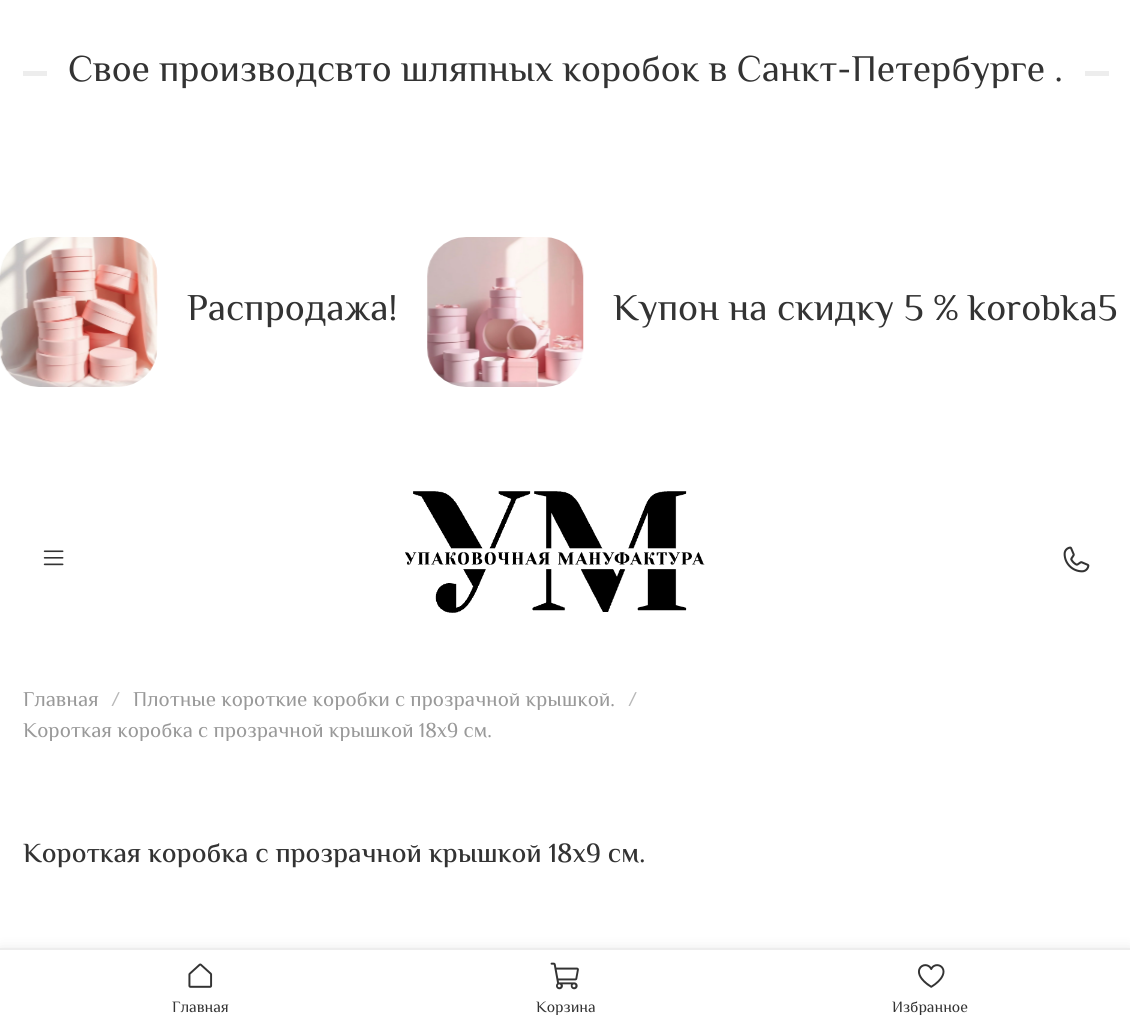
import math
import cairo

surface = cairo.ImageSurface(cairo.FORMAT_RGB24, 1130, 1028)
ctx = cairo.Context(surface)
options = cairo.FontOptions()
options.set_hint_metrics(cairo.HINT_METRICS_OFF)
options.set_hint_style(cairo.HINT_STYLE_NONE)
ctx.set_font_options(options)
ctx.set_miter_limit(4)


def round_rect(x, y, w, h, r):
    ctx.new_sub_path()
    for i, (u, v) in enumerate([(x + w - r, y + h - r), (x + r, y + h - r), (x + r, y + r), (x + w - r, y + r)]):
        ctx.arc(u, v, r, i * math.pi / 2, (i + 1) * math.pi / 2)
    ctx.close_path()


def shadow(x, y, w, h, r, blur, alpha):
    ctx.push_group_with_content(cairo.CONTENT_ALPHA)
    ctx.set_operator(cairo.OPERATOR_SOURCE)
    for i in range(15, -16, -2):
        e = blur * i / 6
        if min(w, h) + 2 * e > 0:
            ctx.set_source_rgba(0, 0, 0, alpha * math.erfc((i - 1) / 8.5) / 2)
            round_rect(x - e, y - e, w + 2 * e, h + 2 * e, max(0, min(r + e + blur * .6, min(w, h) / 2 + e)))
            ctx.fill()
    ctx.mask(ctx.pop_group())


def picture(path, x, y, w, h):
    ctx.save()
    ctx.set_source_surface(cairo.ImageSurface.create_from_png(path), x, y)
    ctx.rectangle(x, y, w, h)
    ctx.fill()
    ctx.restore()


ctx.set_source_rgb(1, 1, 1)
ctx.paint()
ctx.set_source_rgb(0.929, 0.929, 0.929)
ctx.rectangle(23, 71, 24, 5)
ctx.fill()
ctx.select_font_face("El Messiri")
ctx.set_font_size(37.5)
ctx.set_source_rgb(0.2, 0.2, 0.2)
ctx.move_to(68, 81)
ctx.show_text("Свое производсвто шляпных коробок в Санкт-Петербурге .")
ctx.set_source_rgb(0.929, 0.929, 0.929)
ctx.rectangle(1085, 71, 24, 5)
ctx.fill()
picture("img1.png", 0, 237, 158, 150)
ctx.set_font_size(37.75)
ctx.set_source_rgb(0.2, 0.2, 0.2)
ctx.move_to(187, 320)
ctx.show_text("Распродажа!")
picture("img2.png", 427, 237, 157, 150)
ctx.move_to(613, 320)
ctx.show_text("Купон на скидку 5 % korobka5")
picture("img3.png", 43, 550, 21, 16)
picture("img4.png", 405, 491, 300, 122)
picture("img5.png", 1063, 546, 27, 27)
ctx.set_font_size(21)
ctx.set_source_rgb(0.6, 0.6, 0.6)
ctx.move_to(23, 706)
ctx.show_text("Главная")
ctx.set_source_rgb(0.722, 0.722, 0.722)
ctx.move_to(111, 706)
ctx.show_text("/")
ctx.set_source_rgb(0.6, 0.6, 0.6)
ctx.move_to(133, 706)
ctx.show_text("Плотные короткие коробки с прозрачной крышкой.")
ctx.set_source_rgb(0.722, 0.722, 0.722)
ctx.move_to(628, 706)
ctx.show_text("/")
ctx.set_source_rgb(0.6, 0.6, 0.6)
ctx.move_to(23, 737)
ctx.show_text("Короткая коробка с прозрачной крышкой 18х9 см.")
ctx.select_font_face("El Messiri Medium")
ctx.set_font_size(27.6)
ctx.set_source_rgb(0.2, 0.2, 0.2)
ctx.move_to(23, 862)
ctx.show_text("Короткая коробка с прозрачной крышкой 18х9 см.")
ctx.set_source_rgb(0, 0, 0)
shadow(0, 951, 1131, 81, 0, 7.5, 0.12)
ctx.set_source_rgb(1, 1, 1)
ctx.rectangle(0, 950, 1130, 78)
ctx.fill()
ctx.set_source_rgb(0.929, 0.929, 0.929)
ctx.rectangle(0, 948, 1130, 2)
ctx.fill()
picture("img6.png", 188, 963, 25, 25)
ctx.select_font_face("El Messiri")
ctx.set_font_size(15.75)
ctx.set_source_rgb(0.2, 0.2, 0.2)
ctx.move_to(172, 1012)
ctx.show_text("Главная")
picture("img7.png", 550, 962, 29, 28)
ctx.move_to(536, 1012)
ctx.show_text("Корзина")
picture("img8.png", 918, 964, 27, 24)
ctx.move_to(892, 1012)
ctx.show_text("Избранное")
surface.write_to_png("page.png")
